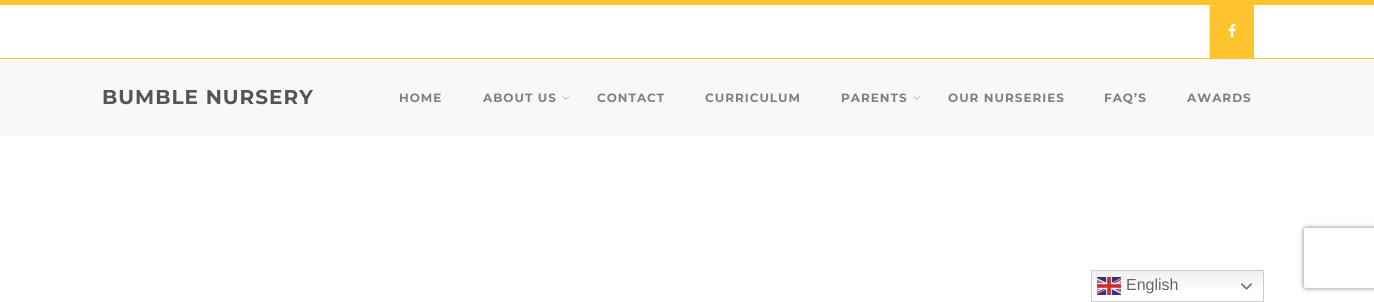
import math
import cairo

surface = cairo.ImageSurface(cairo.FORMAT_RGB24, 1374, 302)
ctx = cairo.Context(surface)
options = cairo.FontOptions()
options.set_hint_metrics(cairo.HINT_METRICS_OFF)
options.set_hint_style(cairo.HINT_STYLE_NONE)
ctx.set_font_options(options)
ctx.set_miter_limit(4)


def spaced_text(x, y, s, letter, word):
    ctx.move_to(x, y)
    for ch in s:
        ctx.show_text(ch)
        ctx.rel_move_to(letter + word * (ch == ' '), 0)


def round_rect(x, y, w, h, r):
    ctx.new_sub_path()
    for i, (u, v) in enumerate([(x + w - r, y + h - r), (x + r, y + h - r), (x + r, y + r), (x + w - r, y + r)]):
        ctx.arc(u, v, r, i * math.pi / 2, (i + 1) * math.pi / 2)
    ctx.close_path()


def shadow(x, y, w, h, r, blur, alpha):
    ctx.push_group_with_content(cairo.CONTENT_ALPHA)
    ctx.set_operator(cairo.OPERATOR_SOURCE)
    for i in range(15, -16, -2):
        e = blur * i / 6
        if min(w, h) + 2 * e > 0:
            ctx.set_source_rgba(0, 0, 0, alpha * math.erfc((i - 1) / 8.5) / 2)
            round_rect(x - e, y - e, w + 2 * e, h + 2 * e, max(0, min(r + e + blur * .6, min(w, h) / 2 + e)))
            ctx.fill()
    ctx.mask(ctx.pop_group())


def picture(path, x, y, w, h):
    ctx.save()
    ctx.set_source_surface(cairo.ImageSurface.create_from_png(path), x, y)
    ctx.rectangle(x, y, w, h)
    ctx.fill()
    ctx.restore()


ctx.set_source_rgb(1, 1, 1)
ctx.paint()
ctx.set_source_rgb(0.996, 0.769, 0.169)
ctx.rectangle(0, 0, 1374, 5)
ctx.fill()
ctx.rectangle(0, 58, 1374, 1)
ctx.fill()
ctx.rectangle(1210, 5, 44, 53)
ctx.fill()
ctx.set_source_rgb(0.922, 0.922, 0.922)
ctx.rectangle(1209, 5, 1, 53)
ctx.fill()
picture("img1.png", 1228, 24, 8, 13)
ctx.set_source_rgb(0.969, 0.969, 0.969)
ctx.rectangle(0, 59, 1374, 77)
ctx.fill()
ctx.select_font_face("Montserrat Thin")
ctx.set_font_size(20)
ctx.set_source_rgb(0.333, 0.333, 0.333)
spaced_text(102, 104, "BUMBLE NURSERY", 1, 0)
ctx.set_font_size(12)
ctx.set_source_rgb(0.506, 0.506, 0.506)
spaced_text(399, 102, "HOME", 1, 0)
spaced_text(483, 102, "ABOUT US", 1, 0)
picture("img2.png", 562, 96, 8, 4)
spaced_text(597, 102, "CONTACT", 1, 0)
spaced_text(705, 102, "CURRICULUM", 1, 0)
spaced_text(841, 102, "PARENTS", 1, 0)
picture("img2.png", 913, 96, 8, 4)
spaced_text(948, 102, "OUR NURSERIES", 1, 0)
spaced_text(1104, 102, "FAQ’S", 1, 0)
spaced_text(1187, 102, "AWARDS", 1, 0)
gradient = cairo.LinearGradient(1178, 270, 1178, 302)
gradient.add_color_stop_rgba(0, 0.937, 0.937, 0.937, 1)
gradient.add_color_stop_rgba(0.7, 1, 1, 1, 1)
ctx.set_source(gradient)
ctx.rectangle(1092, 271, 171, 18)
ctx.fill()
ctx.rectangle(1091.5, 270.5, 172, 31)
ctx.set_source_rgb(0.8, 0.8, 0.8)
ctx.set_line_width(1)
ctx.stroke()
picture("img3.png", 1097, 277, 24, 18)
ctx.select_font_face("Liberation Sans")
ctx.set_font_size(16)
ctx.set_source_rgb(0.4, 0.4, 0.4)
ctx.move_to(1126, 290)
ctx.show_text("English")
picture("img4.png", 1241, 283, 11, 7)
ctx.save()
ctx.set_fill_rule(cairo.FILL_RULE_EVEN_ODD)
ctx.new_path()
ctx.move_to(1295, 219)
ctx.line_to(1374, 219)
ctx.line_to(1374, 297)
ctx.line_to(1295, 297)
ctx.close_path()
ctx.move_to(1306, 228)
ctx.line_to(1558, 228)
ctx.curve_to(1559, 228, 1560, 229, 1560, 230)
ctx.line_to(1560, 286)
ctx.curve_to(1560, 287, 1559, 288, 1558, 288)
ctx.line_to(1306, 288)
ctx.curve_to(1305, 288, 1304, 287, 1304, 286)
ctx.line_to(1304, 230)
ctx.curve_to(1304, 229, 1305, 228, 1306, 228)
ctx.close_path()
ctx.clip()
ctx.set_source_rgb(0.502, 0.502, 0.502)
shadow(1304, 228, 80, 60, 2, 2.5, 1)
ctx.restore()
surface.write_to_png("page.png")
